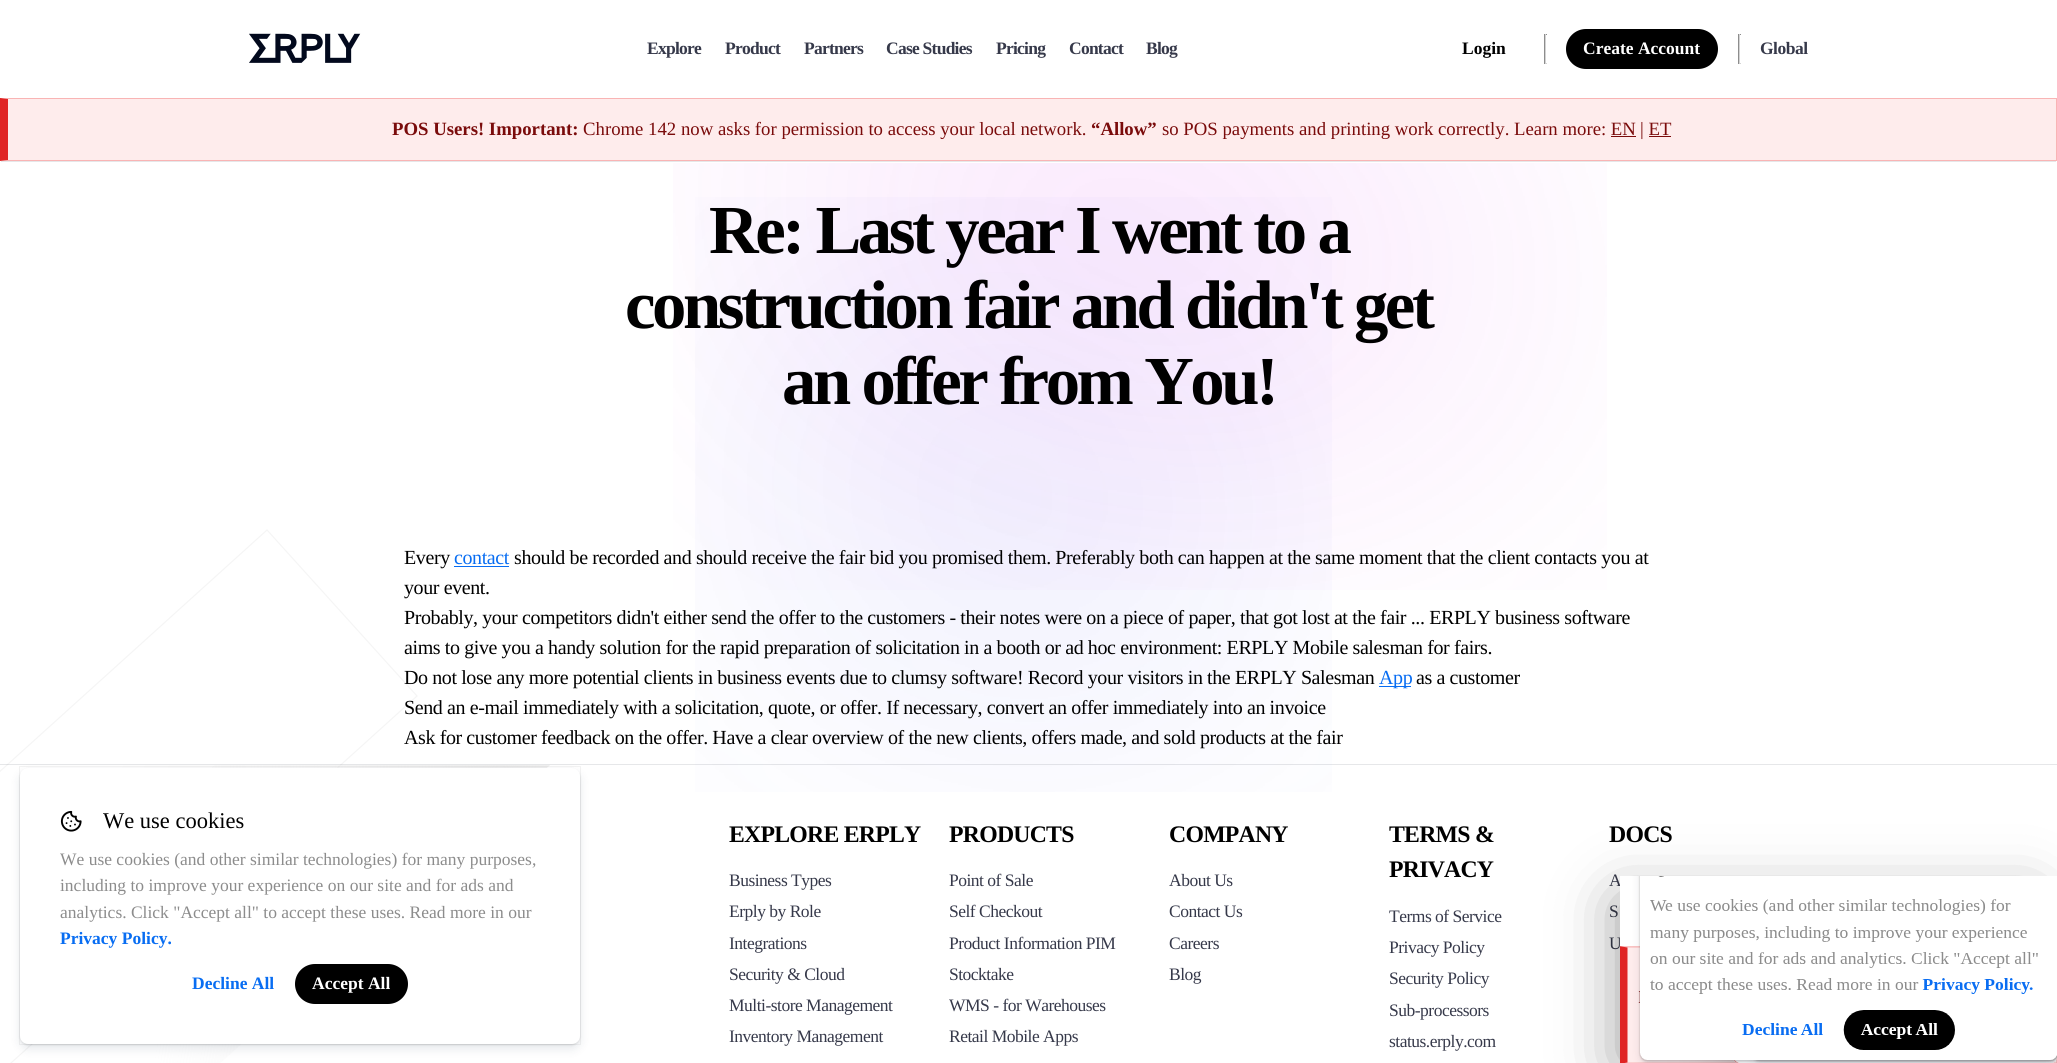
import math
import cairo

surface = cairo.ImageSurface(cairo.FORMAT_RGB24, 2057, 1063)
ctx = cairo.Context(surface)
options = cairo.FontOptions()
options.set_hint_metrics(cairo.HINT_METRICS_OFF)
options.set_hint_style(cairo.HINT_STYLE_NONE)
ctx.set_font_options(options)
ctx.set_miter_limit(4)


def spaced_text(x, y, s, letter, word):
    ctx.move_to(x, y)
    for ch in s:
        ctx.show_text(ch)
        ctx.rel_move_to(letter + word * (ch == ' '), 0)


def round_rect(x, y, w, h, r):
    ctx.new_sub_path()
    for i, (u, v) in enumerate([(x + w - r, y + h - r), (x + r, y + h - r), (x + r, y + r), (x + w - r, y + r)]):
        ctx.arc(u, v, r, i * math.pi / 2, (i + 1) * math.pi / 2)
    ctx.close_path()


def shadow(x, y, w, h, r, blur, alpha):
    ctx.push_group_with_content(cairo.CONTENT_ALPHA)
    ctx.set_operator(cairo.OPERATOR_SOURCE)
    for i in range(15, -16, -2):
        e = blur * i / 6
        if min(w, h) + 2 * e > 0:
            ctx.set_source_rgba(0, 0, 0, alpha * math.erfc((i - 1) / 8.5) / 2)
            round_rect(x - e, y - e, w + 2 * e, h + 2 * e, max(0, min(r + e + blur * .6, min(w, h) / 2 + e)))
            ctx.fill()
    ctx.mask(ctx.pop_group())


def picture(path, x, y, w, h):
    ctx.save()
    ctx.set_source_surface(cairo.ImageSurface.create_from_png(path), x, y)
    ctx.rectangle(x, y, w, h)
    ctx.fill()
    ctx.restore()


ctx.set_source_rgb(1, 1, 1)
ctx.paint()
ctx.set_source_rgb(0.902, 0.906, 0.914)
ctx.rectangle(1, 161, 2055, 1)
ctx.fill()
picture("img1.png", 249, 33, 112, 30)
ctx.select_font_face("Liberation Serif", cairo.FONT_SLANT_NORMAL, cairo.FONT_WEIGHT_BOLD)
ctx.set_font_size(17.5)
ctx.set_source_rgb(0.212, 0.224, 0.29)
spaced_text(647, 54, "Explore", -0.75, 0)
spaced_text(725, 54, "Product", -0.75, 0)
spaced_text(804, 54, "Partners", -0.75, 0)
spaced_text(886, 54, "Case Studies", -0.75, 0)
spaced_text(996, 54, "Pricing", -0.75, 0)
spaced_text(1069, 54, "Contact", -0.75, 0)
spaced_text(1146, 54, "Blog", -0.75, 0)
ctx.set_source_rgb(0, 0, 0)
ctx.move_to(1462, 54)
ctx.show_text("Login")
ctx.set_source_rgb(0.553, 0.553, 0.553)
ctx.rectangle(1544, 34, 3, 1)
ctx.fill()
ctx.set_source_rgb(0.827, 0.827, 0.827)
ctx.rectangle(1545, 34, 1, 30)
ctx.fill()
ctx.rectangle(1544, 63, 3, 1)
ctx.fill()
ctx.set_source_rgb(0.553, 0.553, 0.553)
ctx.rectangle(1544, 34, 1, 30)
ctx.fill()
ctx.set_source_rgb(0, 0, 0)
round_rect(1566, 29, 152, 40, 20)
ctx.fill()
ctx.set_source_rgb(1, 1, 1)
ctx.move_to(1583, 54)
ctx.show_text("Create Account")
ctx.set_source_rgb(0.553, 0.553, 0.553)
ctx.rectangle(1738, 34, 3, 1)
ctx.fill()
ctx.set_source_rgb(0.827, 0.827, 0.827)
ctx.rectangle(1739, 34, 1, 30)
ctx.fill()
ctx.rectangle(1738, 63, 3, 1)
ctx.fill()
ctx.set_source_rgb(0.553, 0.553, 0.553)
ctx.rectangle(1738, 34, 1, 30)
ctx.fill()
ctx.set_source_rgb(0.212, 0.224, 0.29)
spaced_text(1760, 54, "Global", -0.5, 0)
ctx.set_source_rgb(0.996, 0.925, 0.925)
ctx.rectangle(8, 99, 2048, 61)
ctx.fill()
ctx.set_source_rgb(0.973, 0.706, 0.706)
ctx.new_path()
ctx.move_to(0, 98)
ctx.line_to(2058, 98)
ctx.line_to(2056, 99)
ctx.line_to(8, 99)
ctx.close_path()
ctx.fill()
ctx.rectangle(2056, 98, 1, 63)
ctx.fill()
ctx.new_path()
ctx.move_to(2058, 161)
ctx.line_to(0, 161)
ctx.line_to(8, 160)
ctx.line_to(2056, 160)
ctx.close_path()
ctx.fill()
ctx.set_source_rgb(0.878, 0.141, 0.141)
ctx.new_path()
ctx.move_to(0, 161)
ctx.line_to(0, 98)
ctx.line_to(8, 99)
ctx.line_to(8, 160)
ctx.close_path()
ctx.fill()
ctx.set_font_size(18.75)
ctx.set_source_rgb(0.478, 0.043, 0.043)
ctx.move_to(392, 135)
ctx.show_text("POS Users! Important:")
ctx.select_font_face("Liberation Serif")
ctx.move_to(583, 135)
ctx.show_text("Chrome 142 now asks for permission to access your local network.")
ctx.select_font_face("Liberation Serif", cairo.FONT_SLANT_NORMAL, cairo.FONT_WEIGHT_BOLD)
ctx.move_to(1091, 135)
ctx.show_text("“Allow”")
ctx.select_font_face("Liberation Serif")
ctx.move_to(1162, 135)
ctx.show_text("so POS payments and printing work correctly. Learn more: EN")
ctx.move_to(1640, 135)
ctx.show_text("| ET")
ctx.rectangle(1611, 136, 25, 1)
ctx.fill()
ctx.rectangle(1649, 136, 22, 1)
ctx.fill()
picture("img3.png", 695, 197, 637, 595)
picture("img2.png", 673, 163, 934, 427)
ctx.select_font_face("Liberation Serif", cairo.FONT_SLANT_NORMAL, cairo.FONT_WEIGHT_BOLD)
ctx.set_font_size(68.75)
ctx.set_source_rgb(0, 0, 0)
spaced_text(709, 253, "Re: Last year I went to a", -3.45, 0)
spaced_text(625, 328, "construction fair and didn't get", -3.45, 0)
spaced_text(782, 404, "an offer from You!", -3.45, 0)
ctx.select_font_face("Liberation Serif")
ctx.set_font_size(20)
spaced_text(404, 564, "Every", -0.4, 0)
ctx.set_source_rgb(0.035, 0.427, 0.949)
spaced_text(454, 564, "contact", -0.4, 0)
ctx.rectangle(454, 566, 55, 1)
ctx.fill()
ctx.set_source_rgb(0, 0, 0)
spaced_text(514, 564, "should be recorded and should receive the fair bid you promised them. Preferably both can happen at the same moment that the client contacts you at", -0.4, 0)
spaced_text(404, 594, "your event.", -0.4, 0)
spaced_text(404, 624, "Probably, your competitors didn't either send the offer to the customers - their notes were on a piece of paper, that got lost at the fair ... ERPLY business software", -0.4, 0)
spaced_text(404, 654, "aims to give you a handy solution for the rapid preparation of solicitation in a booth or ad hoc environment: ERPLY Mobile salesman for fairs.", -0.4, 0)
spaced_text(404, 684, "Do not lose any more potential clients in business events due to clumsy software! Record your visitors in the ERPLY Salesman", -0.4, 0)
ctx.set_source_rgb(0.035, 0.427, 0.949)
ctx.rectangle(1379, 686, 32, 1)
ctx.fill()
spaced_text(1379, 684, "App", -0.4, 0)
ctx.set_source_rgb(0, 0, 0)
spaced_text(1416, 684, "as a customer", -0.4, 0)
spaced_text(404, 714, "Send an e-mail immediately with a solicitation, quote, or offer. If necessary, convert an offer immediately into an invoice", -0.4, 0)
spaced_text(404, 744, "Ask for customer feedback on the offer. Have a clear overview of the new clients, offers made, and sold products at the fair", -0.4, 0)
ctx.set_source_rgba(0.024, 0.067, 0.122, 0.1)
ctx.rectangle(0, 764, 2057, 1)
ctx.fill()
ctx.save()
ctx.rectangle(0, 765, 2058, 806)
ctx.clip()
gradient = cairo.RadialGradient(0, 0, 0, 0, 0, 1)
gradient.set_matrix(cairo.Matrix(1 / 101, 0, 0, 1 / 331, -1 * 207 / 101, -1 * 878 / 331))
gradient.add_color_stop_rgba(0, 0.98, 0.98, 0.98, 1)
gradient.add_color_stop_rgba(1, 1, 1, 1, 1)
ctx.set_source(gradient)
ctx.new_path()
ctx.move_to(-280, 1024)
ctx.line_to(267, 529)
ctx.line_to(418, 696)
ctx.line_to(-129, 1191)
ctx.close_path()
ctx.fill()
ctx.restore()
ctx.new_path()
ctx.move_to(-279, 1023.5)
ctx.line_to(267, 530)
ctx.line_to(417, 696)
ctx.line_to(-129, 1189.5)
ctx.close_path()
ctx.set_source_rgba(0, 0, 0, 0.04)
ctx.set_line_width(1.2)
ctx.stroke()
ctx.save()
ctx.rectangle(0, 765, 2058, 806)
ctx.clip()
gradient = cairo.RadialGradient(0, 0, 0, 0, 0, 1)
gradient.set_matrix(cairo.Matrix(1 / 357, 0, 0, 1 / 1066, -1 * 501 / 357, -1 * 800 / 1066))
gradient.add_color_stop_rgba(0, 0.933, 0.933, 0.933, 1)
gradient.add_color_stop_rgba(1, 0.933, 0.933, 0.933, 0)
ctx.set_source(gradient)
ctx.new_path()
ctx.move_to(-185, 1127)
ctx.line_to(440, 561)
ctx.line_to(591, 728)
ctx.line_to(-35, 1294)
ctx.close_path()
ctx.fill()
ctx.restore()
ctx.set_source_rgb(0.016, 0.106, 0.227)
shadow(20, 773, 560, 276, 8, 5, 0.1)
ctx.set_source_rgb(0, 0, 0)
shadow(20, 769, 560, 276, 8, 1, 0.12)
ctx.rectangle(19.5, 766.5, 561, 278)
ctx.set_source_rgba(0, 0, 0, 0.05)
ctx.set_line_width(1)
ctx.stroke()
ctx.set_source_rgb(1, 1, 1)
round_rect(20, 768, 560, 276, 8)
ctx.fill()
picture("img4.png", 60, 810, 22, 22)
ctx.set_font_size(22.5)
ctx.set_source_rgb(0, 0, 0)
ctx.move_to(103, 828)
ctx.show_text("We use cookies")
ctx.set_font_size(17.5)
ctx.set_source_rgb(0.549, 0.549, 0.549)
ctx.move_to(60, 865)
ctx.show_text("We use cookies (and other similar technologies) for many purposes,")
ctx.move_to(60, 891)
ctx.show_text("including to improve your experience on our site and for ads and")
ctx.move_to(60, 918)
ctx.show_text("analytics. Click \"Accept all\" to accept these uses. Read more in our")
ctx.select_font_face("Liberation Serif", cairo.FONT_SLANT_NORMAL, cairo.FONT_WEIGHT_BOLD)
ctx.set_source_rgb(0.035, 0.427, 0.949)
ctx.move_to(60, 944)
ctx.show_text("Privacy Policy.")
ctx.move_to(192, 989)
ctx.show_text("Decline All")
ctx.set_source_rgb(0, 0, 0)
round_rect(295, 964, 113, 40, 20)
ctx.fill()
ctx.set_source_rgb(1, 1, 1)
ctx.move_to(312, 989)
ctx.show_text("Accept All")
ctx.set_font_size(23.75)
ctx.set_source_rgb(0, 0, 0)
spaced_text(729, 842, "EXPLORE ERPLY", -0.75, 0)
ctx.select_font_face("Liberation Serif")
ctx.set_font_size(17.5)
ctx.set_source_rgb(0.212, 0.224, 0.29)
spaced_text(729, 886, "Business Types", -0.5, 0)
spaced_text(729, 917, "Erply by Role", -0.5, 0)
spaced_text(729, 949, "Integrations", -0.5, 0)
spaced_text(729, 980, "Security & Cloud", -0.5, 0)
spaced_text(729, 1011, "Multi-store Management", -0.5, 0)
spaced_text(729, 1042, "Inventory Management", -0.5, 0)
ctx.select_font_face("Liberation Serif", cairo.FONT_SLANT_NORMAL, cairo.FONT_WEIGHT_BOLD)
ctx.set_font_size(23.75)
ctx.set_source_rgb(0, 0, 0)
spaced_text(949, 842, "PRODUCTS", -0.75, 0)
ctx.select_font_face("Liberation Serif")
ctx.set_font_size(17.5)
ctx.set_source_rgb(0.212, 0.224, 0.29)
spaced_text(949, 886, "Point of Sale", -0.5, 0)
spaced_text(949, 917, "Self Checkout", -0.5, 0)
spaced_text(949, 949, "Product Information PIM", -0.5, 0)
spaced_text(949, 980, "Stocktake", -0.5, 0)
spaced_text(949, 1011, "WMS - for Warehouses", -0.5, 0)
spaced_text(949, 1042, "Retail Mobile Apps", -0.5, 0)
ctx.select_font_face("Liberation Serif", cairo.FONT_SLANT_NORMAL, cairo.FONT_WEIGHT_BOLD)
ctx.set_font_size(23.75)
ctx.set_source_rgb(0, 0, 0)
spaced_text(1169, 842, "COMPANY", -0.75, 0)
ctx.select_font_face("Liberation Serif")
ctx.set_font_size(17.5)
ctx.set_source_rgb(0.212, 0.224, 0.29)
spaced_text(1169, 886, "About Us", -0.5, 0)
spaced_text(1169, 917, "Contact Us", -0.5, 0)
spaced_text(1169, 949, "Careers", -0.5, 0)
spaced_text(1169, 980, "Blog", -0.5, 0)
ctx.select_font_face("Liberation Serif", cairo.FONT_SLANT_NORMAL, cairo.FONT_WEIGHT_BOLD)
ctx.set_font_size(23.75)
ctx.set_source_rgb(0, 0, 0)
spaced_text(1389, 842, "TERMS &", -0.75, 0)
spaced_text(1389, 877, "PRIVACY", -0.75, 0)
ctx.select_font_face("Liberation Serif")
ctx.set_font_size(17.5)
ctx.set_source_rgb(0.212, 0.224, 0.29)
spaced_text(1389, 922, "Terms of Service", -0.5, 0)
spaced_text(1389, 953, "Privacy Policy", -0.5, 0)
spaced_text(1389, 984, "Security Policy", -0.5, 0)
spaced_text(1389, 1016, "Sub-processors", -0.5, 0)
spaced_text(1389, 1047, "status.erply.com", -0.5, 0)
ctx.select_font_face("Liberation Serif", cairo.FONT_SLANT_NORMAL, cairo.FONT_WEIGHT_BOLD)
ctx.set_font_size(23.75)
ctx.set_source_rgb(0, 0, 0)
spaced_text(1609, 842, "DOCS", -0.75, 0)
ctx.select_font_face("Liberation Serif")
ctx.set_font_size(17.5)
ctx.set_source_rgb(0.212, 0.224, 0.29)
spaced_text(1609, 886, "A", -0.5, 0)
spaced_text(1609, 917, "S", -0.5, 0)
spaced_text(1609, 949, "U", -0.5, 0)
ctx.set_source_rgb(0, 0, 0)
shadow(1620, 901, 413, 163, 0, 31, 0.4)
picture("img5.png", 1620, 876, 437, 187)
surface.write_to_png("page.png")
